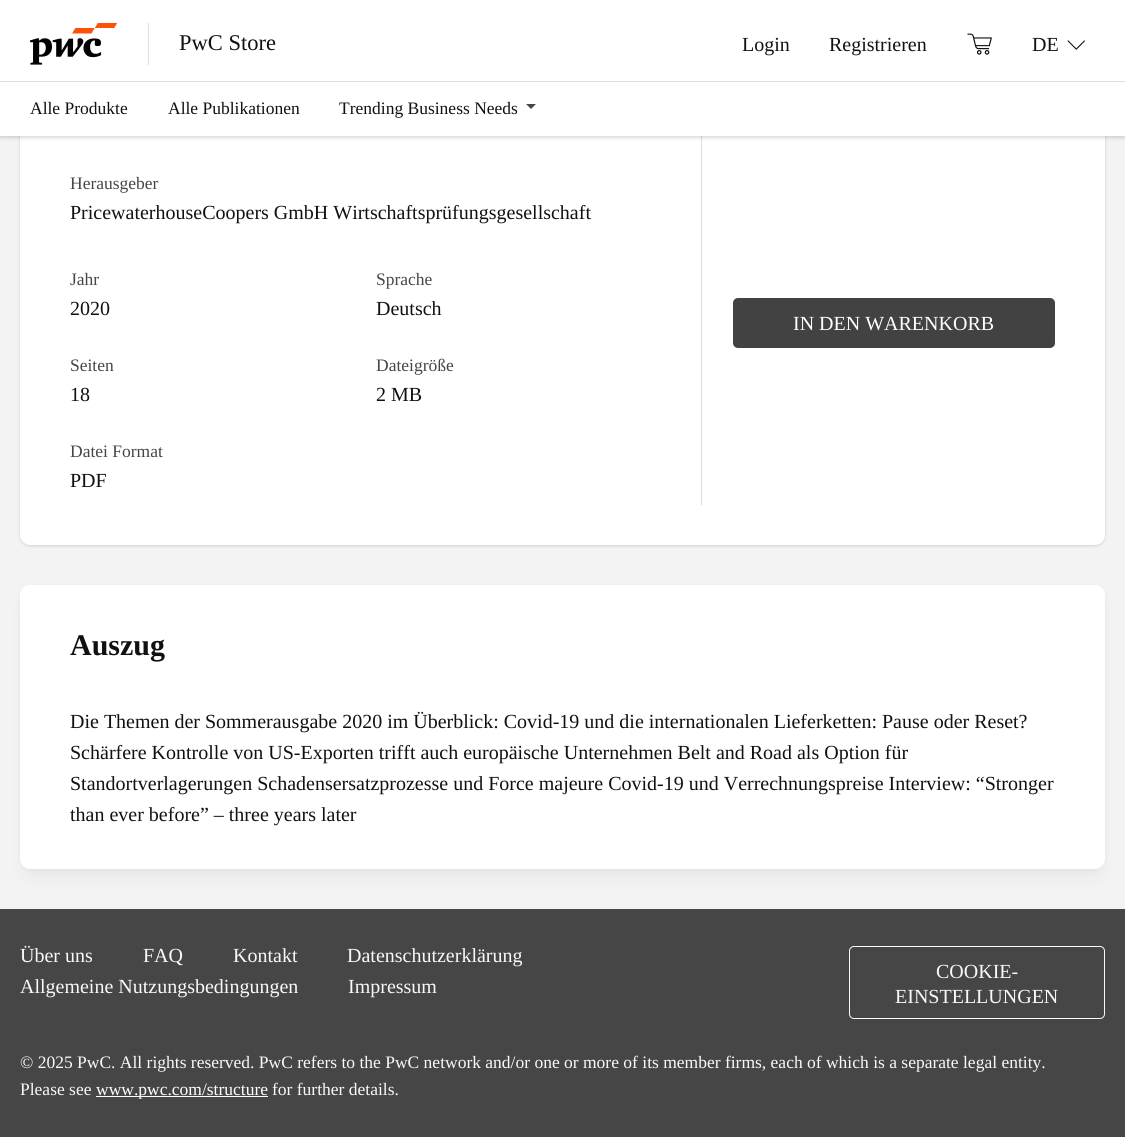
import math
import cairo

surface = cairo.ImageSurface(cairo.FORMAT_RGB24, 1125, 1137)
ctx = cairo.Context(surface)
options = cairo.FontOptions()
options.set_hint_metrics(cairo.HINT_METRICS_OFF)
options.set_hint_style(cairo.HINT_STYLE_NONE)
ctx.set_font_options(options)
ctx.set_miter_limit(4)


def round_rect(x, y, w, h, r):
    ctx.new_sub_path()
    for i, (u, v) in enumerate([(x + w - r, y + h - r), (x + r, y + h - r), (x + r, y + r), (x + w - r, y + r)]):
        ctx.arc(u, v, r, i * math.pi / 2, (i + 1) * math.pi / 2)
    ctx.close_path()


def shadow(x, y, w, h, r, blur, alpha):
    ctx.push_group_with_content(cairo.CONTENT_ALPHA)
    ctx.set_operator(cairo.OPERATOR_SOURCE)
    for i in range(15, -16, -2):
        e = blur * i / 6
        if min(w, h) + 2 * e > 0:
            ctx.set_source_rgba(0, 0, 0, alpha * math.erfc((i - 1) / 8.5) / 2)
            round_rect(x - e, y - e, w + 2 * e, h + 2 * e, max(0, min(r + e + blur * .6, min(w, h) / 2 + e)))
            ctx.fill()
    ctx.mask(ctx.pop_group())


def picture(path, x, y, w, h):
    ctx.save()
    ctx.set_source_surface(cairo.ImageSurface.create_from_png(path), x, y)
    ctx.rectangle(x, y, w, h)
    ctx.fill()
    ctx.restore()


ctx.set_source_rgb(0.953, 0.953, 0.953)
ctx.paint()
ctx.set_source_rgb(0, 0, 0)
shadow(20, 60, 1085, 486, 10, 1, 0.1)
shadow(20, 60, 1085, 486, 10, 2, 0.05)
ctx.set_source_rgb(1, 1, 1)
round_rect(20, 59, 1085, 486, 10)
ctx.fill()
ctx.set_source_rgb(0.871, 0.871, 0.871)
ctx.rectangle(701, 136, 1, 369)
ctx.fill()
ctx.set_source_rgb(0, 0, 0)
shadow(0, 1, 1125, 137, 0, 2, 0.15)
ctx.set_source_rgb(1, 1, 1)
ctx.rectangle(0, 0, 1125, 136)
ctx.fill()
ctx.set_source_rgb(0.871, 0.871, 0.871)
ctx.rectangle(148, 23, 1, 42)
ctx.fill()
picture("img1.png", 30, 23, 88, 42)
ctx.select_font_face("Liberation Serif")
ctx.set_font_size(22.5)
ctx.set_source_rgb(0.067, 0.067, 0.067)
ctx.move_to(179, 50)
ctx.show_text("PwC Store")
ctx.set_font_size(20)
ctx.move_to(742, 51)
ctx.show_text("Login")
ctx.move_to(829, 51)
ctx.show_text("Registrieren")
picture("img2.png", 967, 33, 25, 22)
ctx.move_to(1032, 51)
ctx.show_text("DE")
picture("img3.png", 1067, 40, 18, 10)
ctx.set_source_rgb(0.871, 0.871, 0.871)
ctx.rectangle(0, 81, 1125, 1)
ctx.fill()
ctx.set_font_size(17.5)
ctx.set_source_rgb(0.067, 0.067, 0.067)
ctx.move_to(30, 114)
ctx.show_text("Alle Produkte")
ctx.move_to(168, 114)
ctx.show_text("Alle Publikationen")
ctx.move_to(339, 114)
ctx.show_text("Trending Business Needs")
ctx.set_source_rgb(0.275, 0.275, 0.275)
ctx.new_path()
ctx.move_to(526, 104)
ctx.line_to(536, 104)
ctx.line_to(531, 109)
ctx.close_path()
ctx.fill()
ctx.move_to(70, 189)
ctx.show_text("Herausgeber")
ctx.set_font_size(20)
ctx.set_source_rgb(0.067, 0.067, 0.067)
ctx.move_to(70, 219)
ctx.show_text("PricewaterhouseCoopers GmbH Wirtschaftsprüfungsgesellschaft")
ctx.set_font_size(17.5)
ctx.set_source_rgb(0.275, 0.275, 0.275)
ctx.move_to(70, 285)
ctx.show_text("Jahr")
ctx.set_font_size(20)
ctx.set_source_rgb(0.067, 0.067, 0.067)
ctx.move_to(70, 315)
ctx.show_text("2020")
ctx.set_font_size(17.5)
ctx.set_source_rgb(0.275, 0.275, 0.275)
ctx.move_to(376, 285)
ctx.show_text("Sprache")
ctx.set_font_size(20)
ctx.set_source_rgb(0.067, 0.067, 0.067)
ctx.move_to(376, 315)
ctx.show_text("Deutsch")
ctx.set_font_size(17.5)
ctx.set_source_rgb(0.275, 0.275, 0.275)
ctx.move_to(70, 371)
ctx.show_text("Seiten")
ctx.set_font_size(20)
ctx.set_source_rgb(0.067, 0.067, 0.067)
ctx.move_to(70, 401)
ctx.show_text("18")
ctx.set_font_size(17.5)
ctx.set_source_rgb(0.275, 0.275, 0.275)
ctx.move_to(376, 371)
ctx.show_text("Dateigröße")
ctx.set_font_size(20)
ctx.set_source_rgb(0.067, 0.067, 0.067)
ctx.move_to(376, 401)
ctx.show_text("2 MB")
ctx.set_font_size(17.5)
ctx.set_source_rgb(0.275, 0.275, 0.275)
ctx.move_to(70, 457)
ctx.show_text("Datei Format")
ctx.set_font_size(20)
ctx.set_source_rgb(0.067, 0.067, 0.067)
ctx.move_to(70, 487)
ctx.show_text("PDF")
ctx.set_source_rgb(0.259, 0.259, 0.259)
round_rect(733, 298, 322, 50, 5)
ctx.fill()
ctx.set_source_rgb(1, 1, 1)
ctx.move_to(793, 330)
ctx.show_text("IN DEN WARENKORB")
ctx.set_source_rgb(0, 0, 0)
shadow(26, 604, 1073, 271, 4, 9.5, 0.05)
shadow(20, 586, 1085, 284, 10, 2, 0.05)
ctx.set_source_rgb(1, 1, 1)
round_rect(20, 585, 1085, 284, 10)
ctx.fill()
ctx.select_font_face("Liberation Serif", cairo.FONT_SLANT_NORMAL, cairo.FONT_WEIGHT_BOLD)
ctx.set_font_size(30)
ctx.set_source_rgb(0.067, 0.067, 0.067)
ctx.move_to(70, 655)
ctx.show_text("Auszug")
ctx.select_font_face("Liberation Serif")
ctx.set_font_size(20)
ctx.move_to(70, 728)
ctx.show_text("Die Themen der Sommerausgabe 2020 im Überblick: Covid-19 und die internationalen Lieferketten: Pause oder Reset?")
ctx.move_to(70, 759)
ctx.show_text("Schärfere Kontrolle von US-Exporten trifft auch europäische Unternehmen Belt and Road als Option für")
ctx.move_to(70, 790)
ctx.show_text("Standortverlagerungen Schadensersatzprozesse und Force majeure Covid-19 und Verrechnungspreise Interview: “Stronger")
ctx.move_to(70, 821)
ctx.show_text("than ever before” – three years later")
ctx.set_source_rgb(0.275, 0.275, 0.275)
ctx.rectangle(0, 909, 1125, 228)
ctx.fill()
ctx.set_source_rgb(0.976, 0.976, 0.976)
ctx.move_to(20, 962)
ctx.show_text("Über uns")
ctx.move_to(143, 962)
ctx.show_text("FAQ")
ctx.move_to(233, 962)
ctx.show_text("Kontakt")
ctx.move_to(347, 962)
ctx.show_text("Datenschutzerklärung")
ctx.move_to(20, 993)
ctx.show_text("Allgemeine Nutzungsbedingungen")
ctx.move_to(348, 993)
ctx.show_text("Impressum")
round_rect(849.5, 946.5, 255, 72, 4.5)
ctx.set_line_width(1)
ctx.stroke()
ctx.move_to(936, 978)
ctx.show_text("COOKIE-")
ctx.move_to(895, 1003)
ctx.show_text("EINSTELLUNGEN")
ctx.set_font_size(17.5)
ctx.move_to(20, 1068)
ctx.show_text("© 2025 PwC. All rights reserved. PwC refers to the PwC network and/or one or more of its member firms, each of which is a separate legal entity.")
ctx.move_to(20, 1095)
ctx.show_text("Please see")
ctx.set_source_rgb(1, 1, 1)
ctx.rectangle(96, 1096, 172, 1)
ctx.fill()
ctx.move_to(96, 1095)
ctx.show_text("www.pwc.com/structure")
ctx.set_source_rgb(0.976, 0.976, 0.976)
ctx.move_to(272, 1095)
ctx.show_text("for further details.")
surface.write_to_png("page.png")
